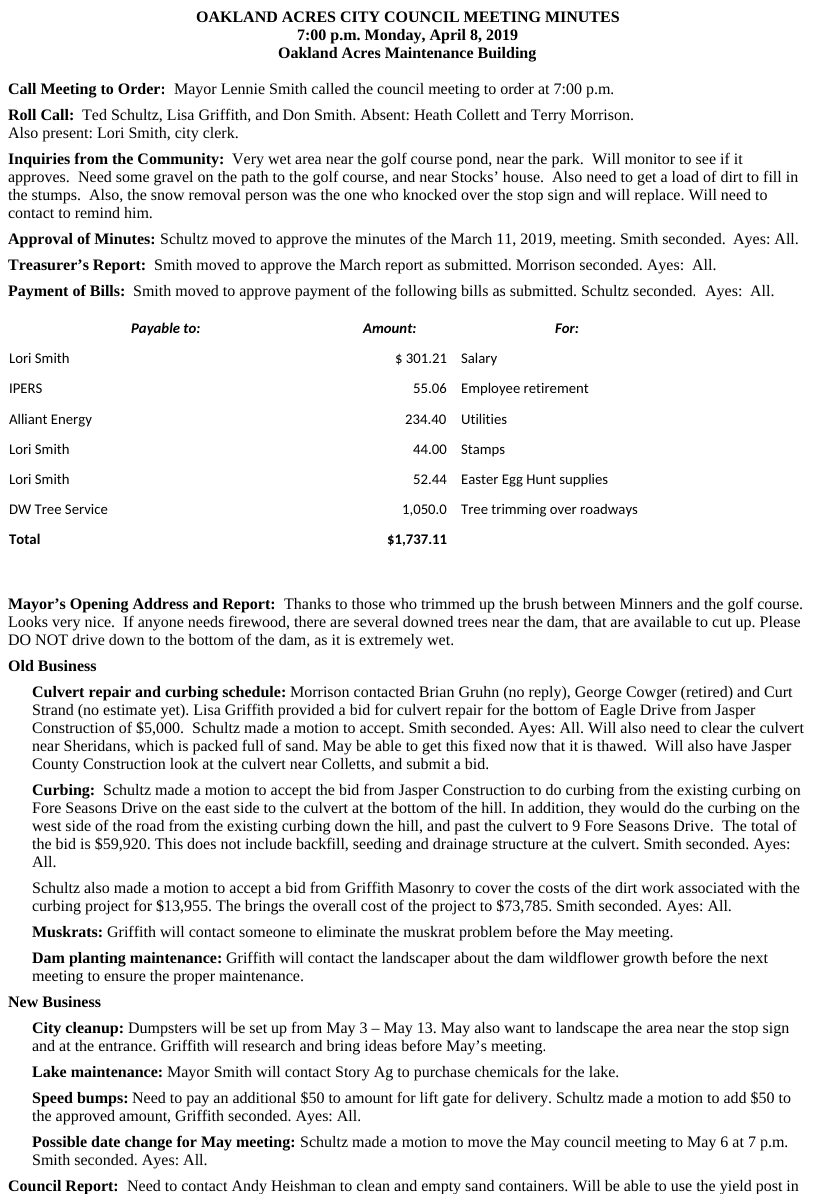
import math
import cairo

surface = cairo.ImageSurface(cairo.FORMAT_RGB24, 815, 1194)
ctx = cairo.Context(surface)
options = cairo.FontOptions()
options.set_hint_metrics(cairo.HINT_METRICS_OFF)
options.set_hint_style(cairo.HINT_STYLE_NONE)
ctx.set_font_options(options)
ctx.set_miter_limit(4)


ctx.set_source_rgb(1, 1, 1)
ctx.paint()
ctx.select_font_face("Liberation Serif", cairo.FONT_SLANT_NORMAL, cairo.FONT_WEIGHT_BOLD)
ctx.set_font_size(16)
ctx.set_source_rgb(0, 0, 0)
ctx.move_to(196, 22)
ctx.show_text("OAKLAND ACRES CITY COUNCIL MEETING MINUTES")
ctx.move_to(297, 40)
ctx.show_text("7:00 p.m. Monday, April 8, 2019")
ctx.move_to(278, 58)
ctx.show_text("Oakland Acres Maintenance Building")
ctx.move_to(8, 94)
ctx.show_text("Call Meeting to Order:")
ctx.select_font_face("Liberation Serif")
ctx.move_to(174, 94)
ctx.show_text("Mayor Lennie Smith called the council meeting to order at 7:00 p.m.")
ctx.select_font_face("Liberation Serif", cairo.FONT_SLANT_NORMAL, cairo.FONT_WEIGHT_BOLD)
ctx.move_to(8, 120)
ctx.show_text("Roll Call:")
ctx.select_font_face("Liberation Serif")
ctx.move_to(82, 120)
ctx.show_text("Ted Schultz, Lisa Griffith, and Don Smith. Absent: Heath Collett and Terry Morrison.")
ctx.move_to(8, 138)
ctx.show_text("Also present: Lori Smith, city clerk.")
ctx.select_font_face("Liberation Serif", cairo.FONT_SLANT_NORMAL, cairo.FONT_WEIGHT_BOLD)
ctx.move_to(8, 164)
ctx.show_text("Inquiries from the Community:")
ctx.select_font_face("Liberation Serif")
ctx.move_to(232, 164)
ctx.show_text("Very wet area near the golf course pond, near the park.")
ctx.move_to(592, 164)
ctx.show_text("Will monitor to see if it")
ctx.move_to(8, 182)
ctx.show_text("approves.")
ctx.move_to(78, 182)
ctx.show_text("Need some gravel on the path to the golf course, and near Stocks’ house.")
ctx.move_to(552, 182)
ctx.show_text("Also need to get a load of dirt to fill in")
ctx.move_to(8, 200)
ctx.show_text("the stumps.")
ctx.move_to(89, 200)
ctx.show_text("Also, the snow removal person was the one who knocked over the stop sign and will replace. Will need to")
ctx.move_to(8, 218)
ctx.show_text("contact to remind him.")
ctx.select_font_face("Liberation Serif", cairo.FONT_SLANT_NORMAL, cairo.FONT_WEIGHT_BOLD)
ctx.move_to(8, 244)
ctx.show_text("Approval of Minutes:")
ctx.select_font_face("Liberation Serif")
ctx.move_to(160, 244)
ctx.show_text("Schultz moved to approve the minutes of the March 11, 2019, meeting. Smith seconded.")
ctx.move_to(733, 244)
ctx.show_text("Ayes: All.")
ctx.select_font_face("Liberation Serif", cairo.FONT_SLANT_NORMAL, cairo.FONT_WEIGHT_BOLD)
ctx.move_to(8, 270)
ctx.show_text("Treasurer’s Report:")
ctx.select_font_face("Liberation Serif")
ctx.move_to(154, 270)
ctx.show_text("Smith moved to approve the March report as submitted. Morrison seconded. Ayes:")
ctx.move_to(692, 270)
ctx.show_text("All.")
ctx.select_font_face("Liberation Serif", cairo.FONT_SLANT_NORMAL, cairo.FONT_WEIGHT_BOLD)
ctx.move_to(8, 296)
ctx.show_text("Payment of Bills:")
ctx.select_font_face("Liberation Serif")
ctx.move_to(133, 296)
ctx.show_text("Smith moved to approve payment of the following bills as submitted. Schultz seconded.")
ctx.move_to(705, 296)
ctx.show_text("Ayes:")
ctx.move_to(750, 296)
ctx.show_text("All.")
ctx.select_font_face("Carlito", cairo.FONT_SLANT_ITALIC, cairo.FONT_WEIGHT_BOLD)
ctx.set_font_size(14.75)
ctx.move_to(131, 333)
ctx.show_text("Payable to:")
ctx.move_to(363, 333)
ctx.show_text("Amount:")
ctx.move_to(555, 333)
ctx.show_text("For:")
ctx.select_font_face("Carlito")
ctx.move_to(9, 363)
ctx.show_text("Lori Smith")
ctx.move_to(395, 363)
ctx.show_text("$ 301.21")
ctx.move_to(461, 363)
ctx.show_text("Salary")
ctx.move_to(9, 393)
ctx.show_text("IPERS")
ctx.move_to(413, 393)
ctx.show_text("55.06")
ctx.move_to(461, 393)
ctx.show_text("Employee retirement")
ctx.move_to(9, 424)
ctx.show_text("Alliant Energy")
ctx.move_to(405, 424)
ctx.show_text("234.40")
ctx.move_to(461, 424)
ctx.show_text("Utilities")
ctx.move_to(9, 454)
ctx.show_text("Lori Smith")
ctx.move_to(413, 454)
ctx.show_text("44.00")
ctx.move_to(461, 454)
ctx.show_text("Stamps")
ctx.move_to(9, 484)
ctx.show_text("Lori Smith")
ctx.move_to(413, 484)
ctx.show_text("52.44")
ctx.move_to(461, 484)
ctx.show_text("Easter Egg Hunt supplies")
ctx.move_to(9, 514)
ctx.show_text("DW Tree Service")
ctx.move_to(402, 514)
ctx.show_text("1,050.0")
ctx.move_to(461, 514)
ctx.show_text("Tree trimming over roadways")
ctx.select_font_face("Carlito", cairo.FONT_SLANT_NORMAL, cairo.FONT_WEIGHT_BOLD)
ctx.move_to(9, 544)
ctx.show_text("Total")
ctx.move_to(387, 544)
ctx.show_text("$1,737.11")
ctx.select_font_face("Liberation Serif", cairo.FONT_SLANT_NORMAL, cairo.FONT_WEIGHT_BOLD)
ctx.set_font_size(16)
ctx.move_to(8, 609)
ctx.show_text("Mayor’s Opening Address and Report:")
ctx.select_font_face("Liberation Serif")
ctx.move_to(284, 609)
ctx.show_text("Thanks to those who trimmed up the brush between Minners and the golf course.")
ctx.move_to(8, 627)
ctx.show_text("Looks very nice.")
ctx.move_to(123, 627)
ctx.show_text("If anyone needs firewood, there are several downed trees near the dam, that are available to cut up. Please")
ctx.move_to(8, 645)
ctx.show_text("DO NOT drive down to the bottom of the dam, as it is extremely wet.")
ctx.select_font_face("Liberation Serif", cairo.FONT_SLANT_NORMAL, cairo.FONT_WEIGHT_BOLD)
ctx.move_to(8, 671)
ctx.show_text("Old Business")
ctx.move_to(32, 697)
ctx.show_text("Culvert repair and curbing schedule:")
ctx.select_font_face("Liberation Serif")
ctx.move_to(290, 697)
ctx.show_text("Morrison contacted Brian Gruhn (no reply), George Cowger (retired) and Curt")
ctx.move_to(32, 715)
ctx.show_text("Strand (no estimate yet). Lisa Griffith provided a bid for culvert repair for the bottom of Eagle Drive from Jasper")
ctx.move_to(32, 733)
ctx.show_text("Construction of $5,000.")
ctx.move_to(192, 733)
ctx.show_text("Schultz made a motion to accept. Smith seconded. Ayes: All. Will also need to clear the culvert")
ctx.move_to(32, 751)
ctx.show_text("near Sheridans, which is packed full of sand. May be able to get this fixed now that it is thawed.")
ctx.move_to(655, 751)
ctx.show_text("Will also have Jasper")
ctx.move_to(32, 769)
ctx.show_text("County Construction look at the culvert near Colletts, and submit a bid.")
ctx.select_font_face("Liberation Serif", cairo.FONT_SLANT_NORMAL, cairo.FONT_WEIGHT_BOLD)
ctx.move_to(32, 795)
ctx.show_text("Curbing:")
ctx.select_font_face("Liberation Serif")
ctx.move_to(103, 795)
ctx.show_text("Schultz made a motion to accept the bid from Jasper Construction to do curbing from the existing curbing on")
ctx.move_to(32, 813)
ctx.show_text("Fore Seasons Drive on the east side to the culvert at the bottom of the hill. In addition, they would do the curbing on the")
ctx.move_to(32, 831)
ctx.show_text("west side of the road from the existing curbing down the hill, and past the culvert to 9 Fore Seasons Drive.")
ctx.move_to(722, 831)
ctx.show_text("The total of")
ctx.move_to(32, 849)
ctx.show_text("the bid is $59,920. This does not include backfill, seeding and drainage structure at the culvert. Smith seconded. Ayes:")
ctx.move_to(32, 867)
ctx.show_text("All.")
ctx.move_to(32, 893)
ctx.show_text("Schultz also made a motion to accept a bid from Griffith Masonry to cover the costs of the dirt work associated with the")
ctx.move_to(32, 911)
ctx.show_text("curbing project for $13,955. The brings the overall cost of the project to $73,785. Smith seconded. Ayes: All.")
ctx.select_font_face("Liberation Serif", cairo.FONT_SLANT_NORMAL, cairo.FONT_WEIGHT_BOLD)
ctx.move_to(32, 937)
ctx.show_text("Muskrats:")
ctx.select_font_face("Liberation Serif")
ctx.move_to(107, 937)
ctx.show_text("Griffith will contact someone to eliminate the muskrat problem before the May meeting.")
ctx.select_font_face("Liberation Serif", cairo.FONT_SLANT_NORMAL, cairo.FONT_WEIGHT_BOLD)
ctx.move_to(32, 963)
ctx.show_text("Dam planting maintenance:")
ctx.select_font_face("Liberation Serif")
ctx.move_to(226, 963)
ctx.show_text("Griffith will contact the landscaper about the dam wildflower growth before the next")
ctx.move_to(32, 981)
ctx.show_text("meeting to ensure the proper maintenance.")
ctx.select_font_face("Liberation Serif", cairo.FONT_SLANT_NORMAL, cairo.FONT_WEIGHT_BOLD)
ctx.move_to(8, 1007)
ctx.show_text("New Business")
ctx.move_to(32, 1033)
ctx.show_text("City cleanup:")
ctx.select_font_face("Liberation Serif")
ctx.move_to(128, 1033)
ctx.show_text("Dumpsters will be set up from May 3 – May 13. May also want to landscape the area near the stop sign")
ctx.move_to(32, 1051)
ctx.show_text("and at the entrance. Griffith will research and bring ideas before May’s meeting.")
ctx.select_font_face("Liberation Serif", cairo.FONT_SLANT_NORMAL, cairo.FONT_WEIGHT_BOLD)
ctx.move_to(32, 1077)
ctx.show_text("Lake maintenance:")
ctx.select_font_face("Liberation Serif")
ctx.move_to(167, 1077)
ctx.show_text("Mayor Smith will contact Story Ag to purchase chemicals for the lake.")
ctx.select_font_face("Liberation Serif", cairo.FONT_SLANT_NORMAL, cairo.FONT_WEIGHT_BOLD)
ctx.move_to(32, 1103)
ctx.show_text("Speed bumps:")
ctx.select_font_face("Liberation Serif")
ctx.move_to(132, 1103)
ctx.show_text("Need to pay an additional $50 to amount for lift gate for delivery. Schultz made a motion to add $50 to")
ctx.move_to(32, 1121)
ctx.show_text("the approved amount, Griffith seconded. Ayes: All.")
ctx.select_font_face("Liberation Serif", cairo.FONT_SLANT_NORMAL, cairo.FONT_WEIGHT_BOLD)
ctx.move_to(32, 1147)
ctx.show_text("Possible date change for May meeting:")
ctx.select_font_face("Liberation Serif")
ctx.move_to(300, 1147)
ctx.show_text("Schultz made a motion to move the May council meeting to May 6 at 7 p.m.")
ctx.move_to(32, 1165)
ctx.show_text("Smith seconded. Ayes: All.")
ctx.select_font_face("Liberation Serif", cairo.FONT_SLANT_NORMAL, cairo.FONT_WEIGHT_BOLD)
ctx.move_to(8, 1191)
ctx.show_text("Council Report:")
ctx.select_font_face("Liberation Serif")
ctx.move_to(127, 1191)
ctx.show_text("Need to contact Andy Heishman to clean and empty sand containers. Will be able to use the yield post in")
surface.write_to_png("page.png")
